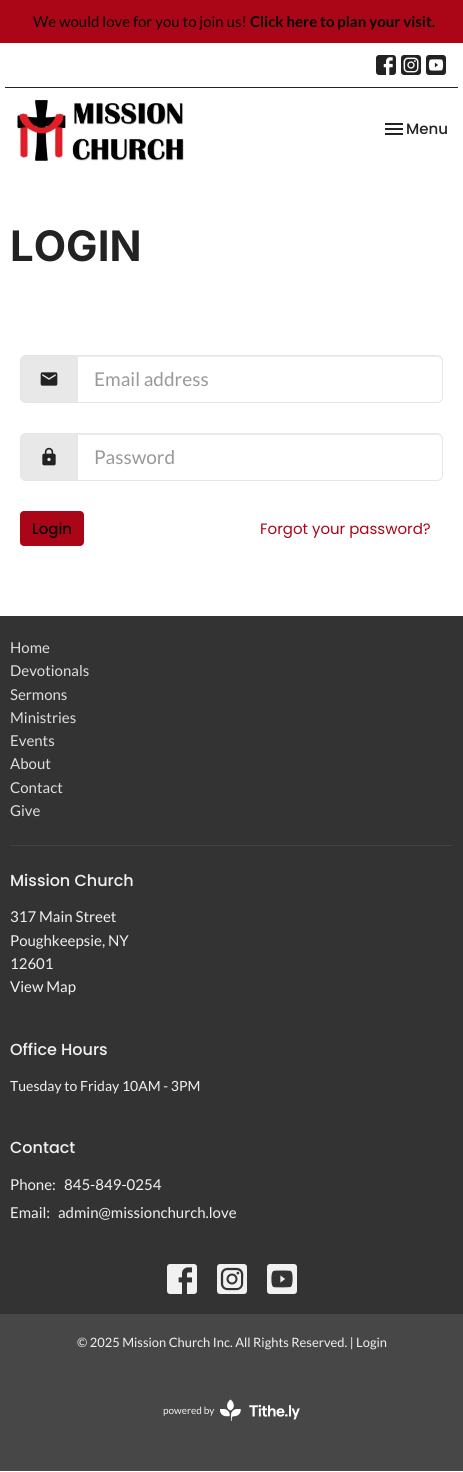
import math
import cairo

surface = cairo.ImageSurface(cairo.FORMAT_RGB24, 463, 1472)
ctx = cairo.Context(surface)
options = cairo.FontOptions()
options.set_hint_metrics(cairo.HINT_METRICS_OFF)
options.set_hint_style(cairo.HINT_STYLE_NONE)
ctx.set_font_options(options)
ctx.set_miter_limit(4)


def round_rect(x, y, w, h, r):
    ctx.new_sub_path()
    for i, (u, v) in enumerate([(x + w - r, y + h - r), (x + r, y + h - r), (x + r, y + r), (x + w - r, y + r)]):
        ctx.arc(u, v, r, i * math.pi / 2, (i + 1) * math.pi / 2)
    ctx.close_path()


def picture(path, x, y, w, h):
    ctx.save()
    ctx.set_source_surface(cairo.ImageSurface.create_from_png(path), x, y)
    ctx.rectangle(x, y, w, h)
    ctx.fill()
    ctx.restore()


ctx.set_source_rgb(1, 1, 1)
ctx.paint()
ctx.set_source_rgb(0.671, 0.027, 0.09)
ctx.rectangle(0, 0, 463, 43)
ctx.fill()
ctx.select_font_face("Lato")
ctx.set_font_size(15)
ctx.set_source_rgb(0.02, 0.02, 0.02)
ctx.move_to(33, 27)
ctx.show_text("We would love for you to join us!")
ctx.select_font_face("Lato", cairo.FONT_SLANT_NORMAL, cairo.FONT_WEIGHT_BOLD)
ctx.move_to(250, 27)
ctx.show_text("Click here to plan your visit.")
ctx.set_source_rgb(0.133, 0.133, 0.133)
ctx.rectangle(5, 87, 453, 1)
ctx.fill()
picture("img1.png", 376, 55, 20, 20)
picture("img2.png", 401, 55, 20, 20)
picture("img3.png", 426, 55, 20, 20)
picture("img4.png", 17, 99, 167, 62)
picture("img5.png", 385, 123, 18, 12)
ctx.select_font_face("Poppins Medium")
ctx.move_to(406, 134)
ctx.show_text("Menu")
ctx.select_font_face("Inter", cairo.FONT_SLANT_NORMAL, cairo.FONT_WEIGHT_BOLD)
ctx.set_font_size(42)
ctx.move_to(10, 261)
ctx.show_text("LOGIN")
ctx.set_source_rgb(0.91, 0.91, 0.91)
ctx.new_path()
ctx.move_to(26, 355)
ctx.line_to(77, 355)
ctx.line_to(77, 403)
ctx.line_to(26, 403)
ctx.curve_to(22.5, 403, 20, 400.5, 20, 397)
ctx.line_to(20, 361)
ctx.curve_to(20, 357.5, 22.5, 355, 26, 355)
ctx.close_path()
ctx.fill()
ctx.set_source_rgb(0.902, 0.902, 0.902)
ctx.set_fill_rule(cairo.FILL_RULE_EVEN_ODD)
ctx.new_path()
ctx.move_to(26, 355)
ctx.line_to(77, 355)
ctx.line_to(77, 403)
ctx.line_to(26, 403)
ctx.curve_to(23, 403, 20, 400, 20, 397)
ctx.line_to(20, 361)
ctx.curve_to(20, 358, 23, 355, 26, 355)
ctx.close_path()
ctx.move_to(26, 356)
ctx.line_to(77, 356)
ctx.line_to(77, 402)
ctx.line_to(26, 402)
ctx.curve_to(23, 402, 21, 400, 21, 397)
ctx.line_to(21, 361)
ctx.curve_to(21, 358, 23, 356, 26, 356)
ctx.close_path()
ctx.fill()
picture("img6.png", 40, 372, 18, 14)
ctx.set_source_rgb(0.925, 0.925, 0.925)
ctx.set_fill_rule(cairo.FILL_RULE_WINDING)
ctx.new_path()
ctx.move_to(78, 357)
ctx.line_to(437, 357)
ctx.curve_to(440, 357, 442, 359, 442, 362)
ctx.line_to(442, 361)
ctx.curve_to(442, 358, 440, 356, 437, 356)
ctx.line_to(78, 356)
ctx.close_path()
ctx.fill()
ctx.new_path()
ctx.move_to(77.5, 355.5)
ctx.line_to(437, 355.5)
ctx.curve_to(440, 355.5, 442.5, 358, 442.5, 361)
ctx.line_to(442.5, 397)
ctx.curve_to(442.5, 400, 440, 402.5, 437, 402.5)
ctx.line_to(77.5, 402.5)
ctx.close_path()
ctx.set_source_rgb(0.902, 0.902, 0.902)
ctx.set_line_width(1)
ctx.stroke()
ctx.select_font_face("Lato")
ctx.set_font_size(19)
ctx.set_source_rgb(0.6, 0.6, 0.6)
ctx.move_to(94, 386)
ctx.show_text("Email address")
ctx.set_source_rgb(0.91, 0.91, 0.91)
ctx.new_path()
ctx.move_to(26, 433)
ctx.line_to(77, 433)
ctx.line_to(77, 481)
ctx.line_to(26, 481)
ctx.curve_to(22.5, 481, 20, 478.5, 20, 475)
ctx.line_to(20, 439)
ctx.curve_to(20, 435.5, 22.5, 433, 26, 433)
ctx.close_path()
ctx.fill()
ctx.set_source_rgb(0.902, 0.902, 0.902)
ctx.set_fill_rule(cairo.FILL_RULE_EVEN_ODD)
ctx.new_path()
ctx.move_to(26, 433)
ctx.line_to(77, 433)
ctx.line_to(77, 481)
ctx.line_to(26, 481)
ctx.curve_to(23, 481, 20, 478, 20, 475)
ctx.line_to(20, 439)
ctx.curve_to(20, 436, 23, 433, 26, 433)
ctx.close_path()
ctx.move_to(26, 434)
ctx.line_to(77, 434)
ctx.line_to(77, 480)
ctx.line_to(26, 480)
ctx.curve_to(23, 480, 21, 478, 21, 475)
ctx.line_to(21, 439)
ctx.curve_to(21, 436, 23, 434, 26, 434)
ctx.close_path()
ctx.fill()
picture("img7.png", 42, 447, 14, 19)
ctx.set_source_rgb(0.925, 0.925, 0.925)
ctx.set_fill_rule(cairo.FILL_RULE_WINDING)
ctx.new_path()
ctx.move_to(78, 435)
ctx.line_to(437, 435)
ctx.curve_to(440, 435, 442, 437, 442, 440)
ctx.line_to(442, 439)
ctx.curve_to(442, 436, 440, 434, 437, 434)
ctx.line_to(78, 434)
ctx.close_path()
ctx.fill()
ctx.new_path()
ctx.move_to(77.5, 433.5)
ctx.line_to(437, 433.5)
ctx.curve_to(440, 433.5, 442.5, 436, 442.5, 439)
ctx.line_to(442.5, 475)
ctx.curve_to(442.5, 478, 440, 480.5, 437, 480.5)
ctx.line_to(77.5, 480.5)
ctx.close_path()
ctx.set_source_rgb(0.902, 0.902, 0.902)
ctx.stroke()
ctx.set_source_rgb(0.6, 0.6, 0.6)
ctx.move_to(94, 464)
ctx.show_text("Password")
ctx.set_source_rgb(0.671, 0.027, 0.09)
round_rect(20, 511, 64, 35, 4)
ctx.fill()
ctx.select_font_face("Poppins Medium")
ctx.set_font_size(15)
ctx.set_source_rgb(0.02, 0.02, 0.02)
ctx.move_to(32, 534)
ctx.show_text("Login")
ctx.select_font_face("Poppins")
ctx.set_source_rgb(0.671, 0.027, 0.09)
ctx.move_to(260, 534)
ctx.show_text("Forgot your password?")
ctx.set_source_rgb(0.2, 0.2, 0.2)
ctx.rectangle(0, 616, 463, 698)
ctx.fill()
ctx.select_font_face("Lato")
ctx.set_source_rgb(0.871, 0.871, 0.871)
ctx.move_to(10, 653)
ctx.show_text("Home")
ctx.move_to(10, 676)
ctx.show_text("Devotionals")
ctx.move_to(10, 700)
ctx.show_text("Sermons")
ctx.move_to(10, 723)
ctx.show_text("Ministries")
ctx.move_to(10, 746)
ctx.show_text("Events")
ctx.move_to(10, 769)
ctx.show_text("About")
ctx.move_to(10, 793)
ctx.show_text("Contact")
ctx.move_to(10, 816)
ctx.show_text("Give")
ctx.set_source_rgb(0.259, 0.259, 0.259)
ctx.rectangle(10, 845, 443, 1)
ctx.fill()
ctx.select_font_face("Poppins Medium")
ctx.set_font_size(16)
ctx.set_source_rgb(0.945, 0.945, 0.945)
ctx.move_to(10, 886)
ctx.show_text("Mission Church")
ctx.select_font_face("Lato")
ctx.set_font_size(15)
ctx.move_to(10, 922)
ctx.show_text("317 Main Street")
ctx.move_to(10, 946)
ctx.show_text("Poughkeepsie, NY")
ctx.move_to(10, 969)
ctx.show_text("12601")
ctx.move_to(10, 992)
ctx.show_text("View Map")
ctx.select_font_face("Poppins Medium")
ctx.set_font_size(16)
ctx.move_to(10, 1055)
ctx.show_text("Office Hours")
ctx.select_font_face("Lato")
ctx.set_font_size(14)
ctx.move_to(10, 1091)
ctx.show_text("Tuesday to Friday 10AM - 3PM")
ctx.select_font_face("Poppins Medium")
ctx.set_font_size(16)
ctx.move_to(10, 1153)
ctx.show_text("Contact")
ctx.select_font_face("Lato")
ctx.set_font_size(15)
ctx.move_to(10, 1190)
ctx.show_text("Phone:")
ctx.move_to(64, 1190)
ctx.show_text("845-849-0254")
ctx.move_to(10, 1218)
ctx.show_text("Email:")
ctx.move_to(58, 1218)
ctx.show_text("admin@missionchurch.love")
picture("img8.png", 167, 1264, 30, 30)
picture("img9.png", 217, 1264, 30, 30)
picture("img10.png", 267, 1264, 30, 30)
ctx.set_source_rgb(0.278, 0.278, 0.278)
ctx.rectangle(0, 1314, 463, 157)
ctx.fill()
ctx.set_font_size(12.9)
ctx.set_source_rgb(0.945, 0.945, 0.945)
ctx.move_to(77, 1347)
ctx.show_text("© 2025 Mission Church Inc. All Rights Reserved. | Login")
ctx.set_font_size(10)
ctx.move_to(163, 1414)
ctx.show_text("powered by")
picture("img11.png", 220, 1399, 80, 22)
surface.write_to_png("page.png")
